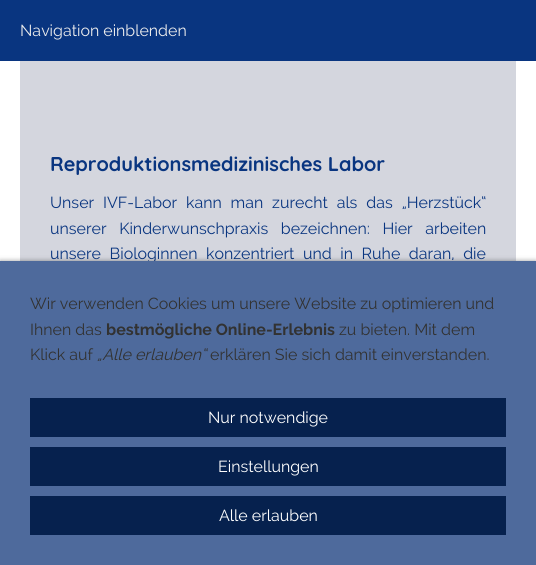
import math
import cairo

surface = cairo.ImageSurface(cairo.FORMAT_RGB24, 536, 565)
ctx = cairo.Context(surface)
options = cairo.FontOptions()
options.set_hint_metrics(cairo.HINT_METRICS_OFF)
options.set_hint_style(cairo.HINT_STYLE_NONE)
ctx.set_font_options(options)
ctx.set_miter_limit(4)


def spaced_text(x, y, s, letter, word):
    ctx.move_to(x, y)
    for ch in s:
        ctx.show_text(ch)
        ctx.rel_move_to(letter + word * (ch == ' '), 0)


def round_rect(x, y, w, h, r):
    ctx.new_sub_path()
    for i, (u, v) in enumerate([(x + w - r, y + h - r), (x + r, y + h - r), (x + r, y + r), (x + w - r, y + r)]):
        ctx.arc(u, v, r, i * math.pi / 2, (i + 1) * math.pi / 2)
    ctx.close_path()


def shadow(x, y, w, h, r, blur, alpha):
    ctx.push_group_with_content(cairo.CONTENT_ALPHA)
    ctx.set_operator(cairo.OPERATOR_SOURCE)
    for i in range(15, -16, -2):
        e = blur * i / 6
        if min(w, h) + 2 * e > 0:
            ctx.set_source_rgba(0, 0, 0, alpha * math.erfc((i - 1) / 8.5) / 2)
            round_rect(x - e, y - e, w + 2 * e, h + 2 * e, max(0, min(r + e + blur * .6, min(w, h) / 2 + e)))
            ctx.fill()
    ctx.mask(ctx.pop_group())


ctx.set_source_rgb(1, 1, 1)
ctx.paint()
ctx.set_source_rgb(0.039, 0.208, 0.502)
ctx.rectangle(0, 0, 536, 61)
ctx.fill()
ctx.select_font_face("Raleway")
ctx.set_font_size(16)
ctx.set_source_rgb(0.922, 0.922, 0.922)
ctx.move_to(20, 36)
ctx.show_text("Navigation einblenden")
ctx.set_source_rgb(0.831, 0.839, 0.871)
ctx.rectangle(20, 61, 496, 200)
ctx.fill()
ctx.select_font_face("Quicksand Light")
ctx.set_font_size(20)
ctx.set_source_rgb(0.039, 0.208, 0.502)
ctx.move_to(50, 171)
ctx.show_text("Reproduktionsmedizinisches Labor")
ctx.select_font_face("Raleway")
ctx.set_font_size(16)
spaced_text(50, 208, "Unser IVF-Labor kann man zurecht als das „Herzstück“", 0, 4.75)
spaced_text(50, 234, "unserer Kinderwunschpraxis bezeichnen: Hier arbeiten", 0, 8.5)
spaced_text(50, 259, "unsere Biologinnen konzentriert und in Ruhe daran, die", 0, 4.5)
ctx.set_source_rgb(0, 0, 0)
shadow(0, 261, 536, 304, 0, 2.5, 0.4)
ctx.set_source_rgb(0.306, 0.416, 0.612)
ctx.rectangle(0, 261, 536, 304)
ctx.fill()
ctx.set_source_rgb(0.196, 0.196, 0.196)
ctx.move_to(30, 309)
ctx.show_text("Wir verwenden Cookies um unsere Website zu optimieren und")
ctx.move_to(30, 335)
ctx.show_text("Ihnen das")
ctx.select_font_face("Raleway", cairo.FONT_SLANT_NORMAL, cairo.FONT_WEIGHT_BOLD)
ctx.move_to(106, 335)
ctx.show_text("bestmögliche Online-Erlebnis")
ctx.select_font_face("Raleway")
ctx.move_to(339, 335)
ctx.show_text("zu bieten. Mit dem")
ctx.move_to(30, 360)
ctx.show_text("Klick auf")
ctx.select_font_face("Raleway", cairo.FONT_SLANT_ITALIC)
ctx.move_to(97, 360)
ctx.show_text("„Alle erlauben“")
ctx.select_font_face("Raleway")
ctx.move_to(210, 360)
ctx.show_text("erklären Sie sich damit einverstanden.")
ctx.set_source_rgb(0.027, 0.129, 0.306)
ctx.rectangle(30, 398, 476, 39)
ctx.fill()
ctx.set_source_rgb(1, 1, 1)
ctx.move_to(208, 423)
ctx.show_text("Nur notwendige")
ctx.set_source_rgb(0.027, 0.129, 0.306)
ctx.rectangle(30, 447, 476, 39)
ctx.fill()
ctx.set_source_rgb(1, 1, 1)
ctx.move_to(218, 472)
ctx.show_text("Einstellungen")
ctx.set_source_rgb(0.027, 0.129, 0.306)
ctx.rectangle(30, 496, 476, 39)
ctx.fill()
ctx.set_source_rgb(1, 1, 1)
ctx.move_to(219, 521)
ctx.show_text("Alle erlauben")
surface.write_to_png("page.png")
